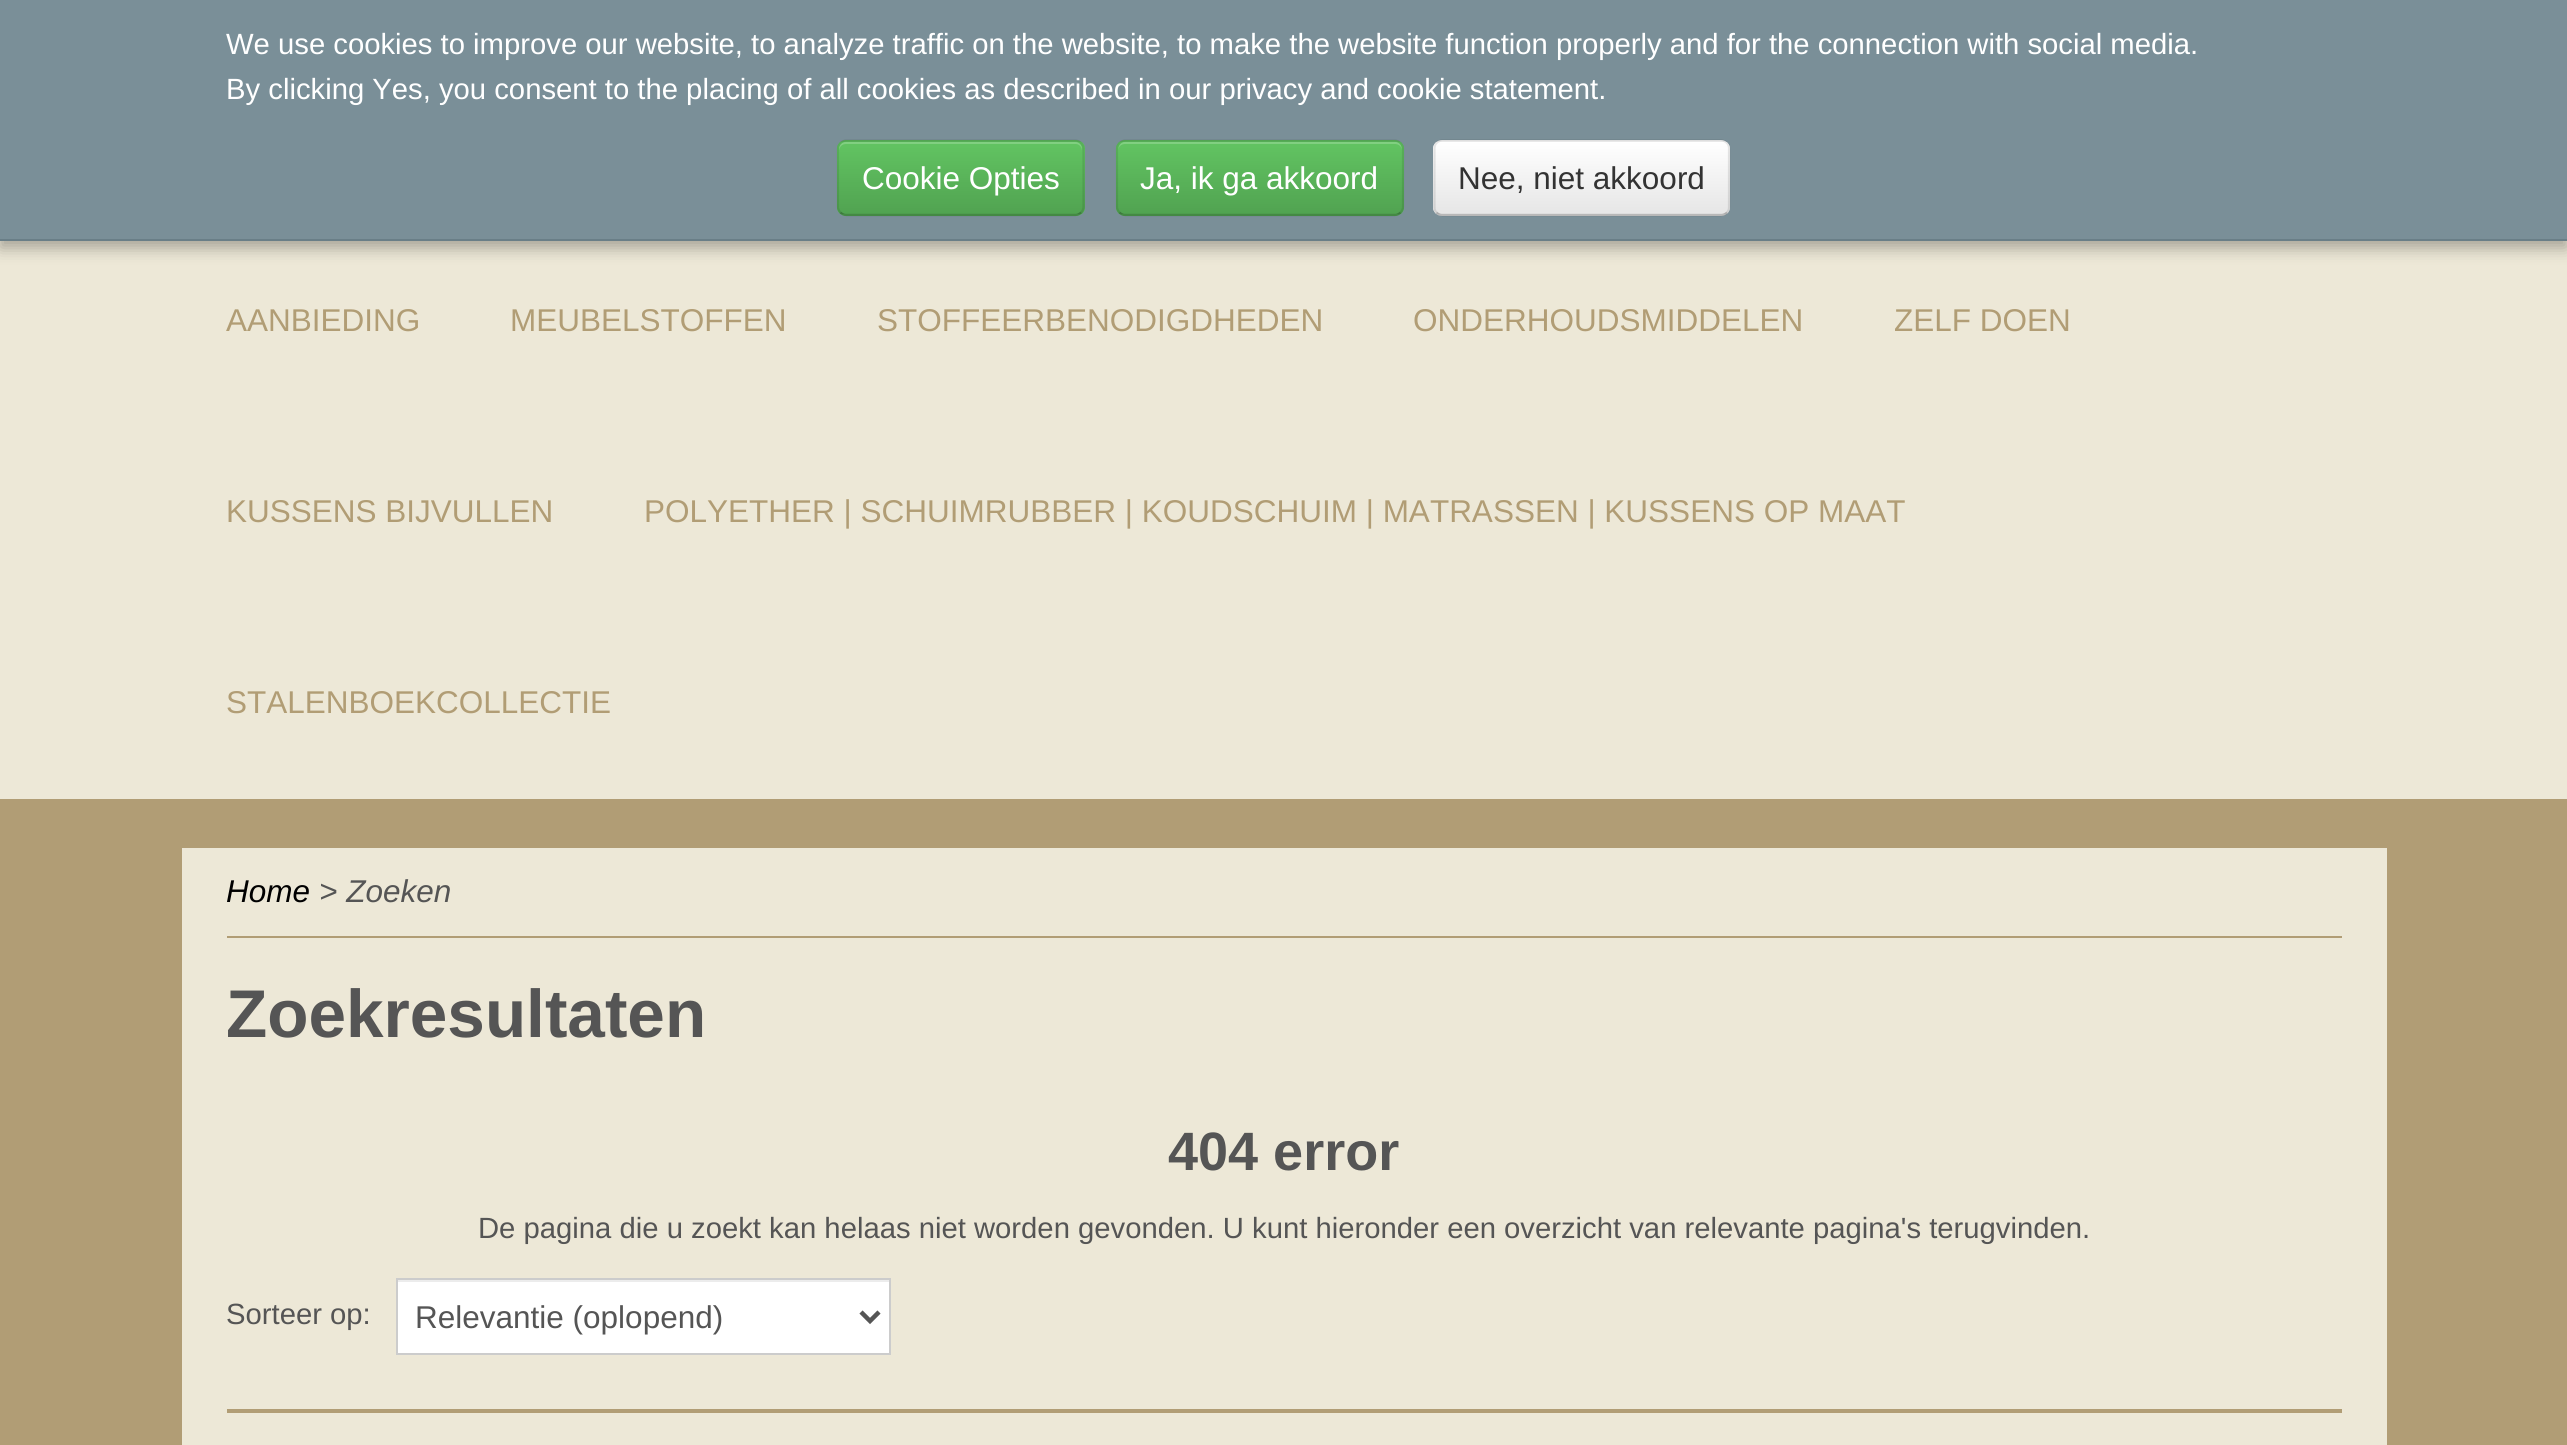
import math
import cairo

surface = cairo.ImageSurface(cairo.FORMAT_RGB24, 2567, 1445)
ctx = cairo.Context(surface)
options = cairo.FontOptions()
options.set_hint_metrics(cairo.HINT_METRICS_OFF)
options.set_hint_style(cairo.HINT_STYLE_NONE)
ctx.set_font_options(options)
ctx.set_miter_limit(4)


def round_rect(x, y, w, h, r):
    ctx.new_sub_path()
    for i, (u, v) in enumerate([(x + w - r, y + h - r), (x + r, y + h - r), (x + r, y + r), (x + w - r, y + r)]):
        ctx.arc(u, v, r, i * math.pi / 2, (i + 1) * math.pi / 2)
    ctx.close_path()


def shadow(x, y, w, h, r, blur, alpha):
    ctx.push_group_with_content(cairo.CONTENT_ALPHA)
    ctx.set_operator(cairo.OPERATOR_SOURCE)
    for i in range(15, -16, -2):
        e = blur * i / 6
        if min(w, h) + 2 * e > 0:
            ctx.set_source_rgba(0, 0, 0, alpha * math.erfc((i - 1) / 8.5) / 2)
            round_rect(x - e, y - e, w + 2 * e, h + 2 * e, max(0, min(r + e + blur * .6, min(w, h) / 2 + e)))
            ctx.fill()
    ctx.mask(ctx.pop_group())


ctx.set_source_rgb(0.694, 0.616, 0.459)
ctx.paint()
ctx.set_source_rgb(0.929, 0.91, 0.843)
ctx.rectangle(0, 241, 2567, 558)
ctx.fill()
ctx.set_source_rgb(0, 0, 0)
shadow(0, 7, 2567, 241, 0, 8, 0.3)
ctx.set_source_rgb(0.478, 0.561, 0.596)
ctx.rectangle(0, 0, 2567, 239)
ctx.fill()
ctx.set_source_rgb(0.412, 0.494, 0.529)
ctx.rectangle(0, 239, 2567, 2)
ctx.fill()
ctx.select_font_face("Liberation Sans")
ctx.set_font_size(29.25)
ctx.set_source_rgb(1, 1, 1)
ctx.move_to(226, 54)
ctx.show_text("We use cookies to improve our website, to analyze traffic on the website, to make the website function properly and for the connection with social media.")
ctx.move_to(226, 99)
ctx.show_text("By clicking Yes, you consent to the placing of all cookies as described in our privacy and cookie statement.")
ctx.set_source_rgb(0.357, 0.718, 0.357)
round_rect(837, 140, 248, 76, 9)
ctx.fill()
ctx.save()
round_rect(837, 140, 248, 76, 9)
ctx.clip()
gradient = cairo.LinearGradient(961, 142, 961, 214)
gradient.add_color_stop_rgba(0, 0.384, 0.769, 0.384, 1)
gradient.add_color_stop_rgba(1, 0.318, 0.639, 0.318, 1)
ctx.set_source(gradient)
ctx.rectangle(837, 142, 248, 72)
ctx.fill()
ctx.restore()
ctx.set_source_rgba(1, 1, 1, 0.2)
ctx.new_path()
ctx.move_to(846, 144)
ctx.line_to(1076, 144)
ctx.curve_to(1079, 144, 1082, 147, 1082, 151)
ctx.line_to(1082, 149)
ctx.curve_to(1082, 145, 1079, 142, 1075, 142)
ctx.line_to(846, 142)
ctx.curve_to(842, 142, 839, 145, 839, 149)
ctx.line_to(839, 151)
ctx.curve_to(839, 147, 842, 144, 846, 144)
ctx.close_path()
ctx.fill()
ctx.new_path()
ctx.move_to(1081, 212.5)
ctx.curve_to(1079.5, 214, 1077.5, 215, 1075.5, 215)
ctx.line_to(846, 215)
ctx.curve_to(844, 215, 842, 214, 840.5, 212.5)
ctx.set_source_rgba(0, 0, 0, 0.25)
ctx.set_line_width(2.2)
ctx.stroke()
ctx.new_path()
ctx.move_to(840.5, 212.5)
ctx.curve_to(839, 211, 838, 209, 838, 207)
ctx.line_to(838, 148.5)
ctx.curve_to(838, 146.5, 839, 144.5, 840.5, 143)
ctx.curve_to(842, 141.5, 844, 140.5, 846, 140.5)
ctx.line_to(1075.5, 140.5)
ctx.curve_to(1077.5, 140.5, 1079.5, 141.5, 1081, 143)
ctx.curve_to(1082.5, 144.5, 1083.5, 146.5, 1083.5, 148.5)
ctx.line_to(1083.5, 207)
ctx.curve_to(1083.5, 209, 1082.5, 211, 1081, 212.5)
ctx.set_source_rgba(0, 0, 0, 0.1)
ctx.stroke()
ctx.set_font_size(31.5)
ctx.set_source_rgb(1, 1, 1)
ctx.move_to(862, 189)
ctx.show_text("Cookie Opties")
ctx.set_source_rgb(0.357, 0.718, 0.357)
round_rect(1116, 140, 288, 76, 9)
ctx.fill()
ctx.save()
round_rect(1116, 140, 288, 76, 9)
ctx.clip()
gradient = cairo.LinearGradient(1260, 142, 1260, 214)
gradient.add_color_stop_rgba(0, 0.384, 0.769, 0.384, 1)
gradient.add_color_stop_rgba(1, 0.318, 0.639, 0.318, 1)
ctx.set_source(gradient)
ctx.rectangle(1116, 142, 288, 72)
ctx.fill()
ctx.restore()
ctx.set_source_rgba(1, 1, 1, 0.2)
ctx.new_path()
ctx.move_to(1125, 144)
ctx.line_to(1395, 144)
ctx.curve_to(1399, 144, 1402, 147, 1402, 151)
ctx.curve_to(1402, 147, 1401, 143, 1396, 142)
ctx.line_to(1125, 142)
ctx.curve_to(1120, 142, 1118, 147, 1118, 151)
ctx.curve_to(1118, 147, 1121, 144, 1125, 144)
ctx.close_path()
ctx.fill()
ctx.new_path()
ctx.move_to(1400.5, 212.5)
ctx.curve_to(1399, 214, 1397, 215, 1395, 215)
ctx.line_to(1125, 215)
ctx.curve_to(1123, 215, 1121, 214, 1119.5, 212.5)
ctx.set_source_rgba(0, 0, 0, 0.25)
ctx.stroke()
ctx.new_path()
ctx.move_to(1119.5, 212.5)
ctx.curve_to(1118, 211, 1117, 209, 1117, 207)
ctx.line_to(1117, 148.5)
ctx.curve_to(1117, 146.5, 1118, 144.5, 1119.5, 143)
ctx.curve_to(1121, 141.5, 1123, 140.5, 1125, 140.5)
ctx.line_to(1395, 140.5)
ctx.curve_to(1397, 140.5, 1399, 141.5, 1400.5, 143)
ctx.curve_to(1402, 144.5, 1403, 146.5, 1403, 148.5)
ctx.line_to(1403, 207)
ctx.curve_to(1403, 209, 1402, 211, 1400.5, 212.5)
ctx.set_source_rgba(0, 0, 0, 0.1)
ctx.stroke()
ctx.set_source_rgb(1, 1, 1)
ctx.move_to(1140, 189)
ctx.show_text("Ja, ik ga akkoord")
ctx.set_source_rgb(0.961, 0.961, 0.961)
round_rect(1433, 140, 297, 76, 9)
ctx.fill()
ctx.save()
round_rect(1433, 140, 297, 76, 9)
ctx.clip()
gradient = cairo.LinearGradient(1582, 142, 1582, 214)
gradient.add_color_stop_rgba(0, 1, 1, 1, 1)
gradient.add_color_stop_rgba(1, 0.902, 0.902, 0.902, 1)
ctx.set_source(gradient)
ctx.rectangle(1433, 142, 297, 72)
ctx.fill()
ctx.restore()
ctx.new_path()
ctx.move_to(1727, 212.5)
ctx.curve_to(1725.5, 214, 1723.5, 215, 1721, 215)
ctx.line_to(1442, 215)
ctx.curve_to(1440, 215, 1438, 214, 1436.5, 212.5)
ctx.set_source_rgba(0, 0, 0, 0.25)
ctx.stroke()
ctx.new_path()
ctx.move_to(1436.5, 212.5)
ctx.curve_to(1435, 211, 1434.5, 209, 1434.5, 207)
ctx.line_to(1434.5, 148.5)
ctx.curve_to(1434.5, 146.5, 1435, 144.5, 1436.5, 143)
ctx.curve_to(1438, 141.5, 1440, 140.5, 1442, 140.5)
ctx.line_to(1721, 140.5)
ctx.curve_to(1723.5, 140.5, 1725.5, 141.5, 1727, 143)
ctx.curve_to(1728.5, 144.5, 1729, 146.5, 1729, 148.5)
ctx.line_to(1729, 207)
ctx.curve_to(1729, 209, 1728.5, 211, 1727, 212.5)
ctx.set_source_rgba(0, 0, 0, 0.1)
ctx.stroke()
ctx.set_source_rgb(0.2, 0.2, 0.2)
ctx.move_to(1458, 189)
ctx.show_text("Nee, niet akkoord")
ctx.set_source_rgb(0.694, 0.616, 0.459)
ctx.move_to(226, 331)
ctx.show_text("AANBIEDING")
ctx.move_to(510, 331)
ctx.show_text("MEUBELSTOFFEN")
ctx.move_to(877, 331)
ctx.show_text("STOFFEERBENODIGDHEDEN")
ctx.move_to(1413, 331)
ctx.show_text("ONDERHOUDSMIDDELEN")
ctx.move_to(1894, 331)
ctx.show_text("ZELF DOEN")
ctx.move_to(226, 522)
ctx.show_text("KUSSENS BIJVULLEN")
ctx.move_to(644, 522)
ctx.show_text("POLYETHER | SCHUIMRUBBER | KOUDSCHUIM | MATRASSEN | KUSSENS OP MAAT")
ctx.move_to(226, 713)
ctx.show_text("STALENBOEKCOLLECTIE")
ctx.set_source_rgb(0.929, 0.91, 0.843)
ctx.rectangle(182, 848, 2205, 597)
ctx.fill()
ctx.set_source_rgb(0.694, 0.616, 0.459)
ctx.rectangle(227, 936, 2115, 2)
ctx.fill()
ctx.select_font_face("Liberation Sans", cairo.FONT_SLANT_ITALIC)
ctx.set_source_rgb(0, 0, 0)
ctx.move_to(226, 902)
ctx.show_text("Home")
ctx.set_source_rgb(0.333, 0.333, 0.333)
ctx.move_to(319, 902)
ctx.show_text("> Zoeken")
ctx.select_font_face("Liberation Sans", cairo.FONT_SLANT_NORMAL, cairo.FONT_WEIGHT_BOLD)
ctx.set_font_size(67.5)
ctx.move_to(226, 1037)
ctx.show_text("Zoekresultaten")
ctx.set_font_size(54)
ctx.move_to(1168, 1170)
ctx.show_text("404 error")
ctx.select_font_face("Liberation Sans")
ctx.set_font_size(29.25)
ctx.move_to(478, 1238)
ctx.show_text("De pagina die u zoekt kan helaas niet worden gevonden. U kunt hieronder een overzicht van relevante pagina's terugvinden.")
ctx.move_to(226, 1324)
ctx.show_text("Sorteer op:")
ctx.set_source_rgb(1, 1, 1)
ctx.rectangle(398, 1282, 491, 71)
ctx.fill()
ctx.set_source_rgb(0.925, 0.925, 0.925)
ctx.rectangle(398, 1280, 491, 2)
ctx.fill()
ctx.rectangle(397, 1279, 493, 75)
ctx.set_source_rgb(0.8, 0.8, 0.8)
ctx.set_line_width(2)
ctx.stroke()
ctx.new_path()
ctx.move_to(861, 1312)
ctx.line_to(870, 1321)
ctx.line_to(879, 1312)
ctx.set_source_rgb(0.333, 0.333, 0.333)
ctx.set_line_width(4.5)
ctx.stroke()
ctx.set_font_size(31.5)
ctx.move_to(415, 1328)
ctx.show_text("Relevantie (oplopend)")
ctx.set_source_rgb(0.694, 0.616, 0.459)
ctx.rectangle(227, 1409, 2115, 4)
ctx.fill()
surface.write_to_png("page.png")
